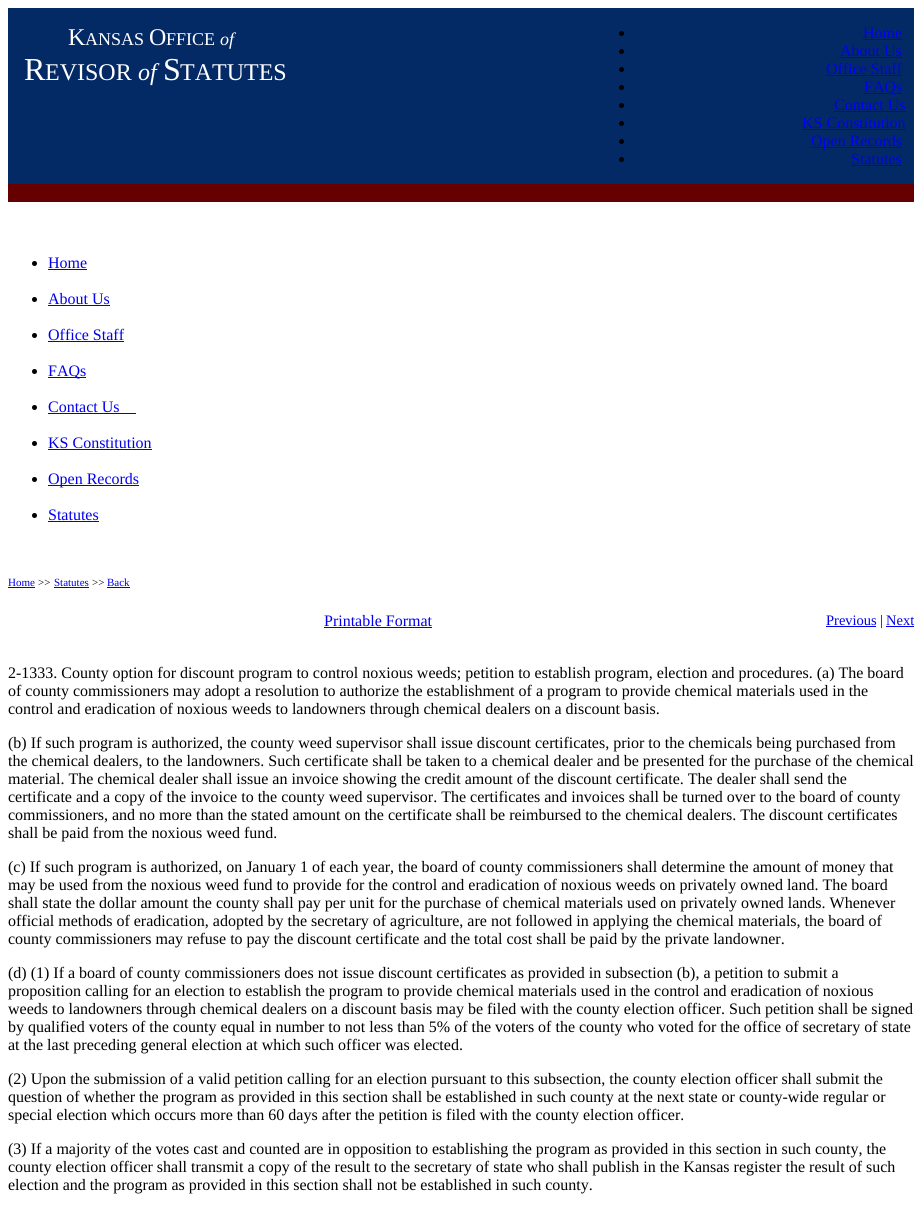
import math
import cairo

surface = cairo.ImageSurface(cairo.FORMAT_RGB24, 922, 1216)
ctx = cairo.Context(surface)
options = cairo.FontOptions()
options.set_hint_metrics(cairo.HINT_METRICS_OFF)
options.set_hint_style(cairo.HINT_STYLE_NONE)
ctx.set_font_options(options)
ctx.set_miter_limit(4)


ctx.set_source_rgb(1, 1, 1)
ctx.paint()
ctx.set_source_rgb(0.016, 0.165, 0.4)
ctx.rectangle(8, 8, 906, 176)
ctx.fill()
ctx.select_font_face("Liberation Serif")
ctx.set_font_size(24)
ctx.set_source_rgb(1, 1, 1)
ctx.move_to(68, 45)
ctx.show_text("K")
ctx.set_font_size(18)
ctx.move_to(85, 45)
ctx.show_text("ANSAS")
ctx.set_font_size(24)
ctx.move_to(149, 45)
ctx.show_text("O")
ctx.set_font_size(18)
ctx.move_to(166, 45)
ctx.show_text("FFICE")
ctx.select_font_face("Liberation Serif", cairo.FONT_SLANT_ITALIC)
ctx.move_to(220, 45)
ctx.show_text("of")
ctx.select_font_face("Liberation Serif")
ctx.set_font_size(32)
ctx.move_to(24, 80)
ctx.show_text("R")
ctx.set_font_size(24)
ctx.move_to(45, 80)
ctx.show_text("EVISOR")
ctx.select_font_face("Liberation Serif", cairo.FONT_SLANT_ITALIC)
ctx.move_to(138, 80)
ctx.show_text("of")
ctx.select_font_face("Liberation Serif")
ctx.set_font_size(32)
ctx.move_to(163, 80)
ctx.show_text("S")
ctx.set_font_size(24)
ctx.move_to(180, 80)
ctx.show_text("TATUTES")
ctx.set_source_rgb(0, 0, 0)
ctx.new_path()
ctx.arc(621.5, 33.5, 2.5, 0, 2 * math.pi)
ctx.fill()
ctx.set_font_size(16)
ctx.set_source_rgb(0, 0, 0.933)
ctx.move_to(863, 38)
ctx.show_text("Home")
ctx.rectangle(863, 39, 39, 1)
ctx.fill()
ctx.set_source_rgb(0, 0, 0)
ctx.arc(621.5, 51.5, 2.5, 0, 2 * math.pi)
ctx.fill()
ctx.set_source_rgb(0, 0, 0.933)
ctx.move_to(840, 56)
ctx.show_text("About Us")
ctx.rectangle(840, 57, 62, 1)
ctx.fill()
ctx.set_source_rgb(0, 0, 0)
ctx.arc(621.5, 69.5, 2.5, 0, 2 * math.pi)
ctx.fill()
ctx.set_source_rgb(0, 0, 0.933)
ctx.move_to(826, 74)
ctx.show_text("Office Staff")
ctx.rectangle(826, 75, 76, 1)
ctx.fill()
ctx.set_source_rgb(0, 0, 0)
ctx.arc(621.5, 87.5, 2.5, 0, 2 * math.pi)
ctx.fill()
ctx.set_source_rgb(0, 0, 0.933)
ctx.rectangle(864, 93, 38, 1)
ctx.fill()
ctx.move_to(864, 92)
ctx.show_text("FAQs")
ctx.set_source_rgb(0, 0, 0)
ctx.new_path()
ctx.arc(621.5, 105.5, 2.5, 0, 2 * math.pi)
ctx.fill()
ctx.set_source_rgb(0, 0, 0.933)
ctx.move_to(834, 110)
ctx.show_text("Contact Us")
ctx.rectangle(834, 111, 72, 1)
ctx.fill()
ctx.set_source_rgb(0, 0, 0)
ctx.arc(621.5, 123.5, 2.5, 0, 2 * math.pi)
ctx.fill()
ctx.set_source_rgb(0, 0, 0.933)
ctx.move_to(802, 128)
ctx.show_text("KS Constitution")
ctx.rectangle(802, 129, 104, 1)
ctx.fill()
ctx.set_source_rgb(0, 0, 0)
ctx.arc(621.5, 141.5, 2.5, 0, 2 * math.pi)
ctx.fill()
ctx.set_source_rgb(0, 0, 0.933)
ctx.rectangle(811, 147, 91, 1)
ctx.fill()
ctx.move_to(811, 146)
ctx.show_text("Open Records")
ctx.set_source_rgb(0, 0, 0)
ctx.new_path()
ctx.arc(621.5, 159.5, 2.5, 0, 2 * math.pi)
ctx.fill()
ctx.set_source_rgb(0, 0, 0.933)
ctx.move_to(851, 164)
ctx.show_text("Statutes")
ctx.rectangle(851, 165, 51, 1)
ctx.fill()
ctx.set_source_rgb(0.4, 0, 0)
ctx.rectangle(8, 184, 906, 18)
ctx.fill()
ctx.set_source_rgb(0, 0, 0)
ctx.arc(34.5, 263.5, 2.5, 0, 2 * math.pi)
ctx.fill()
ctx.set_source_rgb(0, 0, 0.933)
ctx.move_to(48, 268)
ctx.show_text("Home")
ctx.rectangle(48, 269, 39, 1)
ctx.fill()
ctx.set_source_rgb(0, 0, 0)
ctx.arc(34.5, 299.5, 2.5, 0, 2 * math.pi)
ctx.fill()
ctx.set_source_rgb(0, 0, 0.933)
ctx.move_to(48, 304)
ctx.show_text("About Us")
ctx.rectangle(48, 305, 62, 1)
ctx.fill()
ctx.set_source_rgb(0, 0, 0)
ctx.arc(34.5, 335.5, 2.5, 0, 2 * math.pi)
ctx.fill()
ctx.set_source_rgb(0, 0, 0.933)
ctx.move_to(48, 340)
ctx.show_text("Office Staff")
ctx.rectangle(48, 341, 76, 1)
ctx.fill()
ctx.set_source_rgb(0, 0, 0)
ctx.arc(34.5, 371.5, 2.5, 0, 2 * math.pi)
ctx.fill()
ctx.set_source_rgb(0, 0, 0.933)
ctx.rectangle(48, 377, 38, 1)
ctx.fill()
ctx.move_to(48, 376)
ctx.show_text("FAQs")
ctx.set_source_rgb(0, 0, 0)
ctx.new_path()
ctx.arc(34.5, 407.5, 2.5, 0, 2 * math.pi)
ctx.fill()
ctx.set_source_rgb(0, 0, 0.933)
ctx.move_to(48, 412)
ctx.show_text("Contact Us")
ctx.rectangle(48, 413, 88, 1)
ctx.fill()
ctx.set_source_rgb(0, 0, 0)
ctx.arc(34.5, 443.5, 2.5, 0, 2 * math.pi)
ctx.fill()
ctx.set_source_rgb(0, 0, 0.933)
ctx.move_to(48, 448)
ctx.show_text("KS Constitution")
ctx.rectangle(48, 449, 104, 1)
ctx.fill()
ctx.set_source_rgb(0, 0, 0)
ctx.arc(34.5, 479.5, 2.5, 0, 2 * math.pi)
ctx.fill()
ctx.set_source_rgb(0, 0, 0.933)
ctx.rectangle(48, 485, 91, 1)
ctx.fill()
ctx.move_to(48, 484)
ctx.show_text("Open Records")
ctx.set_source_rgb(0, 0, 0)
ctx.new_path()
ctx.arc(34.5, 515.5, 2.5, 0, 2 * math.pi)
ctx.fill()
ctx.set_source_rgb(0, 0, 0.933)
ctx.move_to(48, 520)
ctx.show_text("Statutes")
ctx.rectangle(48, 521, 51, 1)
ctx.fill()
ctx.set_font_size(11)
ctx.move_to(8, 586)
ctx.show_text("Home")
ctx.rectangle(8, 587, 27, 1)
ctx.fill()
ctx.set_source_rgb(0, 0, 0)
ctx.move_to(38, 586)
ctx.show_text(">>")
ctx.set_source_rgb(0, 0, 0.933)
ctx.move_to(54, 586)
ctx.show_text("Statutes")
ctx.rectangle(54, 587, 35, 1)
ctx.fill()
ctx.set_source_rgb(0, 0, 0)
ctx.move_to(92, 586)
ctx.show_text(">>")
ctx.set_source_rgb(0, 0, 0.933)
ctx.move_to(107, 586)
ctx.show_text("Back")
ctx.rectangle(107, 587, 23, 1)
ctx.fill()
ctx.set_font_size(16)
ctx.move_to(324, 626)
ctx.show_text("Printable Format")
ctx.rectangle(324, 627, 108, 1)
ctx.fill()
ctx.set_font_size(14.5)
ctx.move_to(826, 625)
ctx.show_text("Previous")
ctx.rectangle(826, 626, 50, 1)
ctx.fill()
ctx.set_source_rgb(0, 0, 0)
ctx.move_to(880, 625)
ctx.show_text("|")
ctx.set_source_rgb(0, 0, 0.933)
ctx.move_to(886, 625)
ctx.show_text("Next")
ctx.rectangle(886, 626, 28, 1)
ctx.fill()
ctx.set_font_size(16)
ctx.set_source_rgb(0, 0, 0)
ctx.move_to(8, 678)
ctx.show_text("2-1333. County option for discount program to control noxious weeds; petition to establish program, election and procedures. (a) The board")
ctx.move_to(8, 696)
ctx.show_text("of county commissioners may adopt a resolution to authorize the establishment of a program to provide chemical materials used in the")
ctx.move_to(8, 714)
ctx.show_text("control and eradication of noxious weeds to landowners through chemical dealers on a discount basis.")
ctx.move_to(8, 748)
ctx.show_text("(b) If such program is authorized, the county weed supervisor shall issue discount certificates, prior to the chemicals being purchased from")
ctx.move_to(8, 766)
ctx.show_text("the chemical dealers, to the landowners. Such certificate shall be taken to a chemical dealer and be presented for the purchase of the chemical")
ctx.move_to(8, 784)
ctx.show_text("material. The chemical dealer shall issue an invoice showing the credit amount of the discount certificate. The dealer shall send the")
ctx.move_to(8, 802)
ctx.show_text("certificate and a copy of the invoice to the county weed supervisor. The certificates and invoices shall be turned over to the board of county")
ctx.move_to(8, 820)
ctx.show_text("commissioners, and no more than the stated amount on the certificate shall be reimbursed to the chemical dealers. The discount certificates")
ctx.move_to(8, 838)
ctx.show_text("shall be paid from the noxious weed fund.")
ctx.move_to(8, 872)
ctx.show_text("(c) If such program is authorized, on January 1 of each year, the board of county commissioners shall determine the amount of money that")
ctx.move_to(8, 890)
ctx.show_text("may be used from the noxious weed fund to provide for the control and eradication of noxious weeds on privately owned land. The board")
ctx.move_to(8, 908)
ctx.show_text("shall state the dollar amount the county shall pay per unit for the purchase of chemical materials used on privately owned lands. Whenever")
ctx.move_to(8, 926)
ctx.show_text("official methods of eradication, adopted by the secretary of agriculture, are not followed in applying the chemical materials, the board of")
ctx.move_to(8, 944)
ctx.show_text("county commissioners may refuse to pay the discount certificate and the total cost shall be paid by the private landowner.")
ctx.move_to(8, 978)
ctx.show_text("(d) (1) If a board of county commissioners does not issue discount certificates as provided in subsection (b), a petition to submit a")
ctx.move_to(8, 996)
ctx.show_text("proposition calling for an election to establish the program to provide chemical materials used in the control and eradication of noxious")
ctx.move_to(8, 1014)
ctx.show_text("weeds to landowners through chemical dealers on a discount basis may be filed with the county election officer. Such petition shall be signed")
ctx.move_to(8, 1032)
ctx.show_text("by qualified voters of the county equal in number to not less than 5% of the voters of the county who voted for the office of secretary of state")
ctx.move_to(8, 1050)
ctx.show_text("at the last preceding general election at which such officer was elected.")
ctx.move_to(8, 1084)
ctx.show_text("(2) Upon the submission of a valid petition calling for an election pursuant to this subsection, the county election officer shall submit the")
ctx.move_to(8, 1102)
ctx.show_text("question of whether the program as provided in this section shall be established in such county at the next state or county-wide regular or")
ctx.move_to(8, 1120)
ctx.show_text("special election which occurs more than 60 days after the petition is filed with the county election officer.")
ctx.move_to(8, 1154)
ctx.show_text("(3) If a majority of the votes cast and counted are in opposition to establishing the program as provided in this section in such county, the")
ctx.move_to(8, 1172)
ctx.show_text("county election officer shall transmit a copy of the result to the secretary of state who shall publish in the Kansas register the result of such")
ctx.move_to(8, 1190)
ctx.show_text("election and the program as provided in this section shall not be established in such county.")
surface.write_to_png("page.png")
